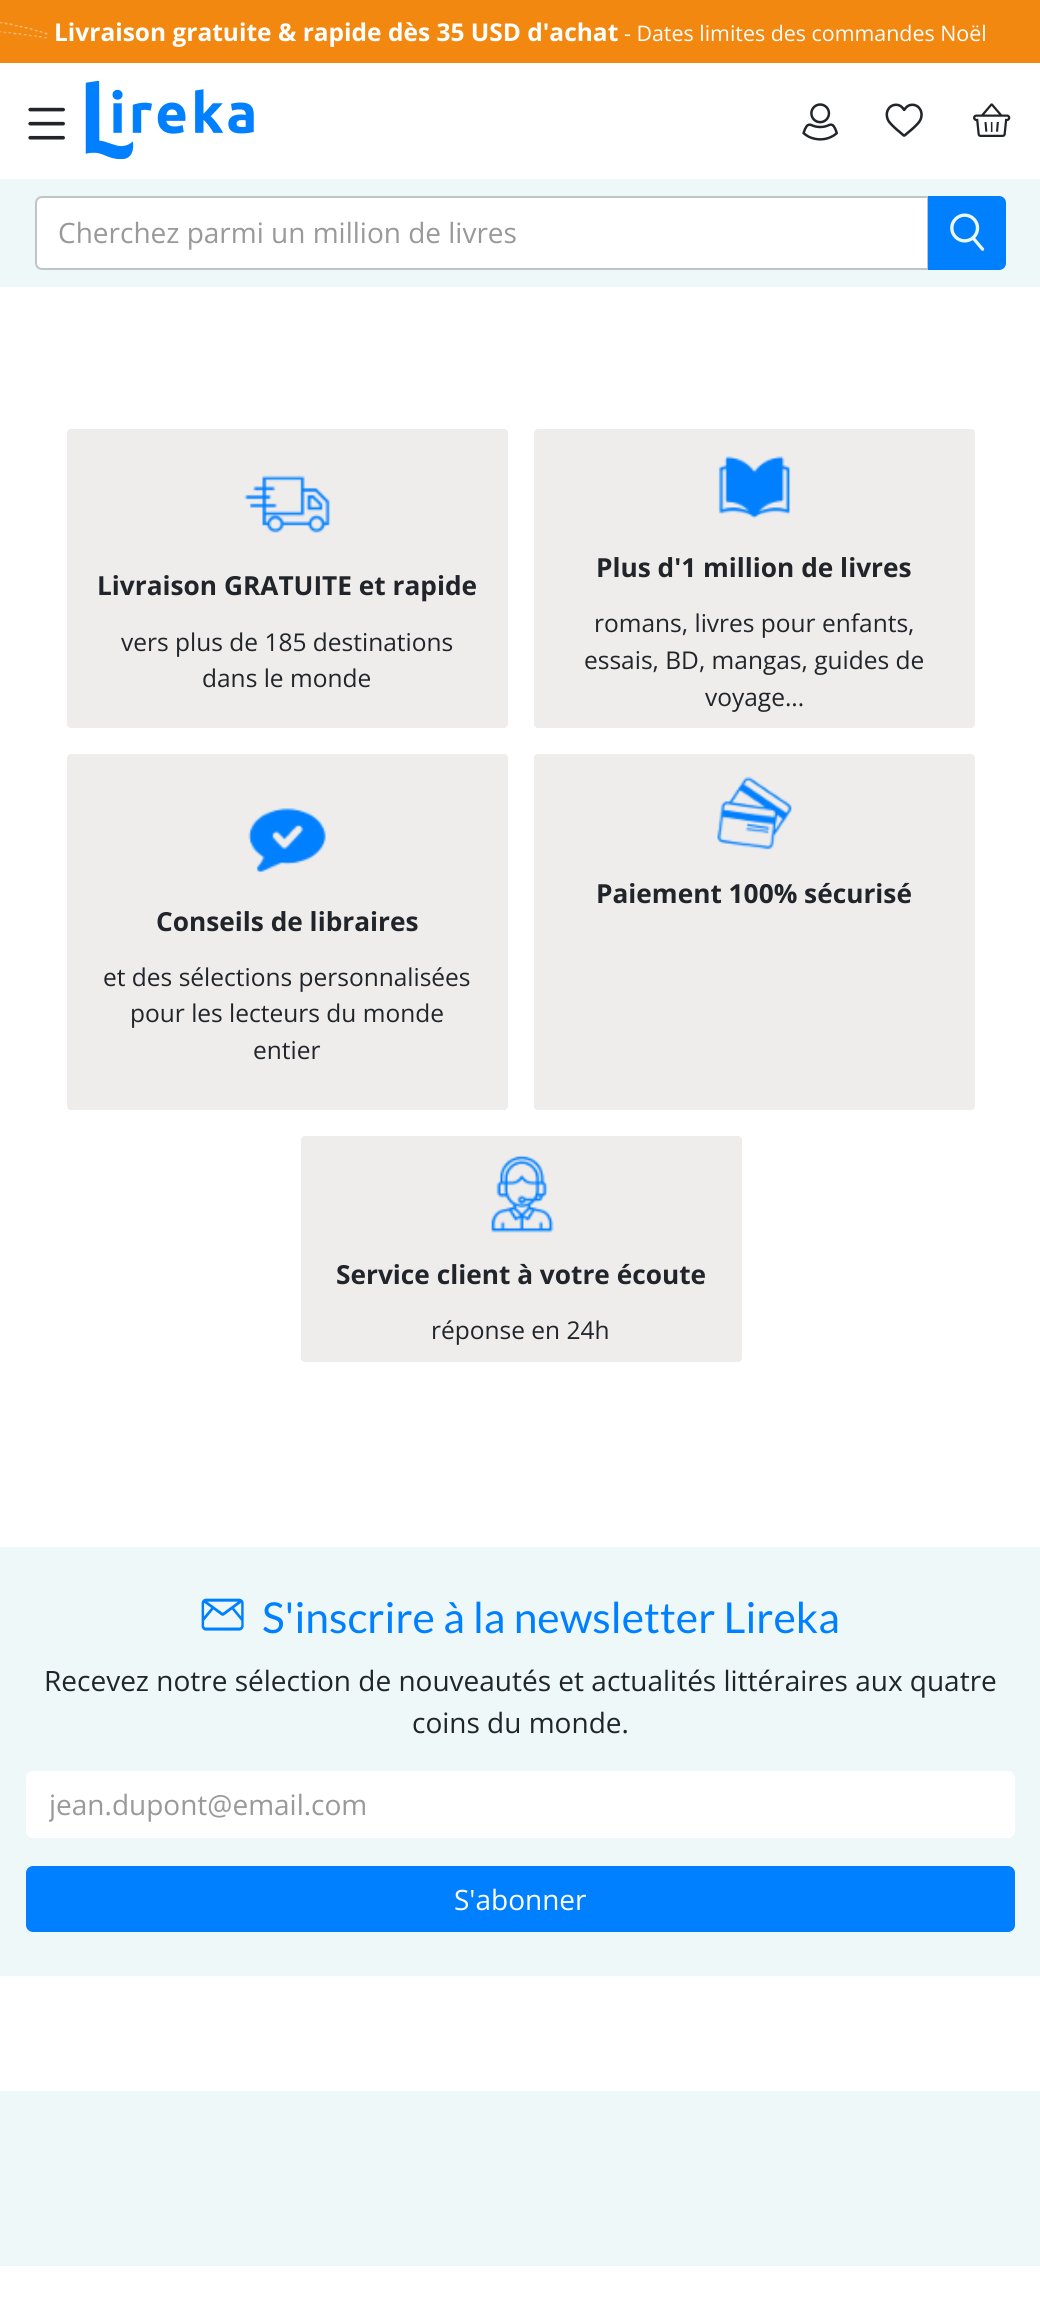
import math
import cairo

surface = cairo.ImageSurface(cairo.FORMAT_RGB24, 1040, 2302)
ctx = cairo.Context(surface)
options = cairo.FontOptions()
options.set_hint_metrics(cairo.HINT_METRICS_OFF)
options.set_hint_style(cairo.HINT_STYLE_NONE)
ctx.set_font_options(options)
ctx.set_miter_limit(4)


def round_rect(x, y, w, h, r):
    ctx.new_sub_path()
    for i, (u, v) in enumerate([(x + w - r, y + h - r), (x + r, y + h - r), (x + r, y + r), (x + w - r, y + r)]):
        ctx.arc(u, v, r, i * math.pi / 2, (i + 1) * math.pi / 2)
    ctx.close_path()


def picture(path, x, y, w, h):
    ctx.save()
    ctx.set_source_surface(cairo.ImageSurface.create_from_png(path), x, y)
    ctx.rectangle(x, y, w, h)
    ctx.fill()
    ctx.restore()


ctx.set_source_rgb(1, 1, 1)
ctx.paint()
ctx.set_source_rgb(0.949, 0.533, 0.059)
ctx.rectangle(0, 0, 1040, 63)
ctx.fill()
picture("img1.png", 0, 21, 48, 18)
ctx.select_font_face("Open Sans", cairo.FONT_SLANT_NORMAL, cairo.FONT_WEIGHT_BOLD)
ctx.set_font_size(24.5)
ctx.set_source_rgb(1, 1, 1)
ctx.move_to(54, 41)
ctx.show_text("Livraison gratuite & rapide dès 35 USD d'achat")
ctx.select_font_face("Open Sans")
ctx.set_font_size(21.4)
ctx.move_to(624, 41)
ctx.show_text("- Dates limites des commandes Noël")
picture("img2.png", 28, 107, 37, 33)
picture("img3.png", 85, 81, 169, 78)
picture("img4.png", 802, 103, 37, 38)
picture("img5.png", 885, 103, 38, 34)
picture("img6.png", 973, 103, 38, 34)
ctx.set_source_rgb(0.933, 0.969, 0.973)
ctx.rectangle(0, 179, 1040, 108)
ctx.fill()
ctx.set_source_rgb(1, 1, 1)
ctx.new_path()
ctx.move_to(42, 197)
ctx.line_to(928, 197)
ctx.line_to(928, 269)
ctx.line_to(42, 269)
ctx.curve_to(38.5, 269, 36, 266.5, 36, 263)
ctx.line_to(36, 203)
ctx.curve_to(36, 199.5, 38.5, 197, 42, 197)
ctx.close_path()
ctx.fill_preserve()
ctx.set_source_rgb(0.745, 0.773, 0.776)
ctx.stroke()
ctx.set_font_size(28)
ctx.set_source_rgb(0.6, 0.6, 0.6)
ctx.move_to(58, 243)
ctx.show_text("Cherchez parmi un million de livres")
ctx.set_source_rgb(0, 0.502, 1)
ctx.new_path()
ctx.move_to(928, 196)
ctx.line_to(999, 196)
ctx.curve_to(1003, 196, 1006, 199, 1006, 203)
ctx.line_to(1006, 263)
ctx.curve_to(1006, 267, 1003, 270, 999, 270)
ctx.line_to(928, 270)
ctx.close_path()
ctx.fill()
picture("img7.png", 950, 213, 35, 38)
ctx.set_source_rgb(0.937, 0.925, 0.925)
round_rect(67, 429, 441, 299, 4)
ctx.fill()
picture("img8.png", 244, 475, 87, 58)
ctx.select_font_face("Open Sans", cairo.FONT_SLANT_NORMAL, cairo.FONT_WEIGHT_BOLD)
ctx.set_font_size(26.25)
ctx.set_source_rgb(0.129, 0.145, 0.161)
ctx.move_to(97, 595)
ctx.show_text("Livraison GRATUITE et rapide")
ctx.select_font_face("Open Sans")
ctx.set_font_size(24.5)
ctx.move_to(121, 651)
ctx.show_text("vers plus de 185 destinations")
ctx.move_to(202, 687)
ctx.show_text("dans le monde")
ctx.set_source_rgb(0.937, 0.925, 0.925)
round_rect(534, 429, 441, 299, 4)
ctx.fill()
picture("img9.png", 718, 456, 73, 63)
ctx.select_font_face("Open Sans", cairo.FONT_SLANT_NORMAL, cairo.FONT_WEIGHT_BOLD)
ctx.set_font_size(26.25)
ctx.set_source_rgb(0.129, 0.145, 0.161)
ctx.move_to(596, 577)
ctx.show_text("Plus d'1 million de livres")
ctx.select_font_face("Open Sans")
ctx.set_font_size(24.5)
ctx.move_to(594, 632)
ctx.show_text("romans, livres pour enfants,")
ctx.move_to(584, 669)
ctx.show_text("essais, BD, mangas, guides de")
ctx.move_to(705, 706)
ctx.show_text("voyage...")
ctx.set_source_rgb(0.937, 0.925, 0.925)
round_rect(534, 754, 441, 356, 4)
ctx.fill()
picture("img10.png", 717, 776, 75, 74)
ctx.select_font_face("Open Sans", cairo.FONT_SLANT_NORMAL, cairo.FONT_WEIGHT_BOLD)
ctx.set_font_size(26.25)
ctx.set_source_rgb(0.129, 0.145, 0.161)
ctx.move_to(596, 903)
ctx.show_text("Paiement 100% sécurisé")
ctx.set_source_rgb(0.937, 0.925, 0.925)
round_rect(67, 754, 441, 356, 4)
ctx.fill()
picture("img11.png", 248, 808, 78, 65)
ctx.set_source_rgb(0.129, 0.145, 0.161)
ctx.move_to(156, 931)
ctx.show_text("Conseils de libraires")
ctx.select_font_face("Open Sans")
ctx.set_font_size(24.5)
ctx.move_to(103, 986)
ctx.show_text("et des sélections personnalisées")
ctx.move_to(130, 1022)
ctx.show_text("pour les lecteurs du monde")
ctx.move_to(253, 1059)
ctx.show_text("entier")
ctx.set_source_rgb(0.937, 0.925, 0.925)
round_rect(301, 1136, 441, 226, 4)
ctx.fill()
picture("img12.png", 491, 1155, 63, 78)
ctx.select_font_face("Open Sans", cairo.FONT_SLANT_NORMAL, cairo.FONT_WEIGHT_BOLD)
ctx.set_font_size(26.25)
ctx.set_source_rgb(0.129, 0.145, 0.161)
ctx.move_to(336, 1284)
ctx.show_text("Service client à votre écoute")
ctx.select_font_face("Open Sans")
ctx.set_font_size(24.5)
ctx.move_to(431, 1339)
ctx.show_text("réponse en 24h")
ctx.set_source_rgb(0.933, 0.969, 0.973)
ctx.rectangle(0, 1547, 1040, 429)
ctx.fill()
picture("img13.png", 201, 1598, 43, 33)
ctx.select_font_face("Lato")
ctx.set_font_size(42.6)
ctx.set_source_rgb(0, 0.502, 1)
ctx.move_to(262, 1633)
ctx.show_text("S'inscrire à la newsletter Lireka")
ctx.select_font_face("Open Sans")
ctx.set_font_size(28)
ctx.set_source_rgb(0.129, 0.145, 0.161)
ctx.move_to(44, 1691)
ctx.show_text("Recevez notre sélection de nouveautés et actualités littéraires aux quatre")
ctx.move_to(412, 1733)
ctx.show_text("coins du monde.")
ctx.set_source_rgb(1, 1, 1)
round_rect(27, 1772, 987, 65, 6)
ctx.fill_preserve()
ctx.stroke()
ctx.save()
ctx.rectangle(49, 1785, 943, 39)
ctx.clip()
ctx.set_source_rgb(0.6, 0.6, 0.6)
ctx.move_to(49, 1815)
ctx.show_text("jean.dupont@email.com")
ctx.restore()
ctx.set_source_rgb(0, 0.502, 1)
round_rect(27, 1867, 987, 64, 6)
ctx.fill_preserve()
ctx.stroke()
ctx.set_source_rgb(1, 1, 1)
ctx.move_to(454, 1910)
ctx.show_text("S'abonner")
ctx.set_source_rgb(0.933, 0.969, 0.973)
ctx.rectangle(0, 2091, 1040, 175)
ctx.fill()
surface.write_to_png("page.png")
